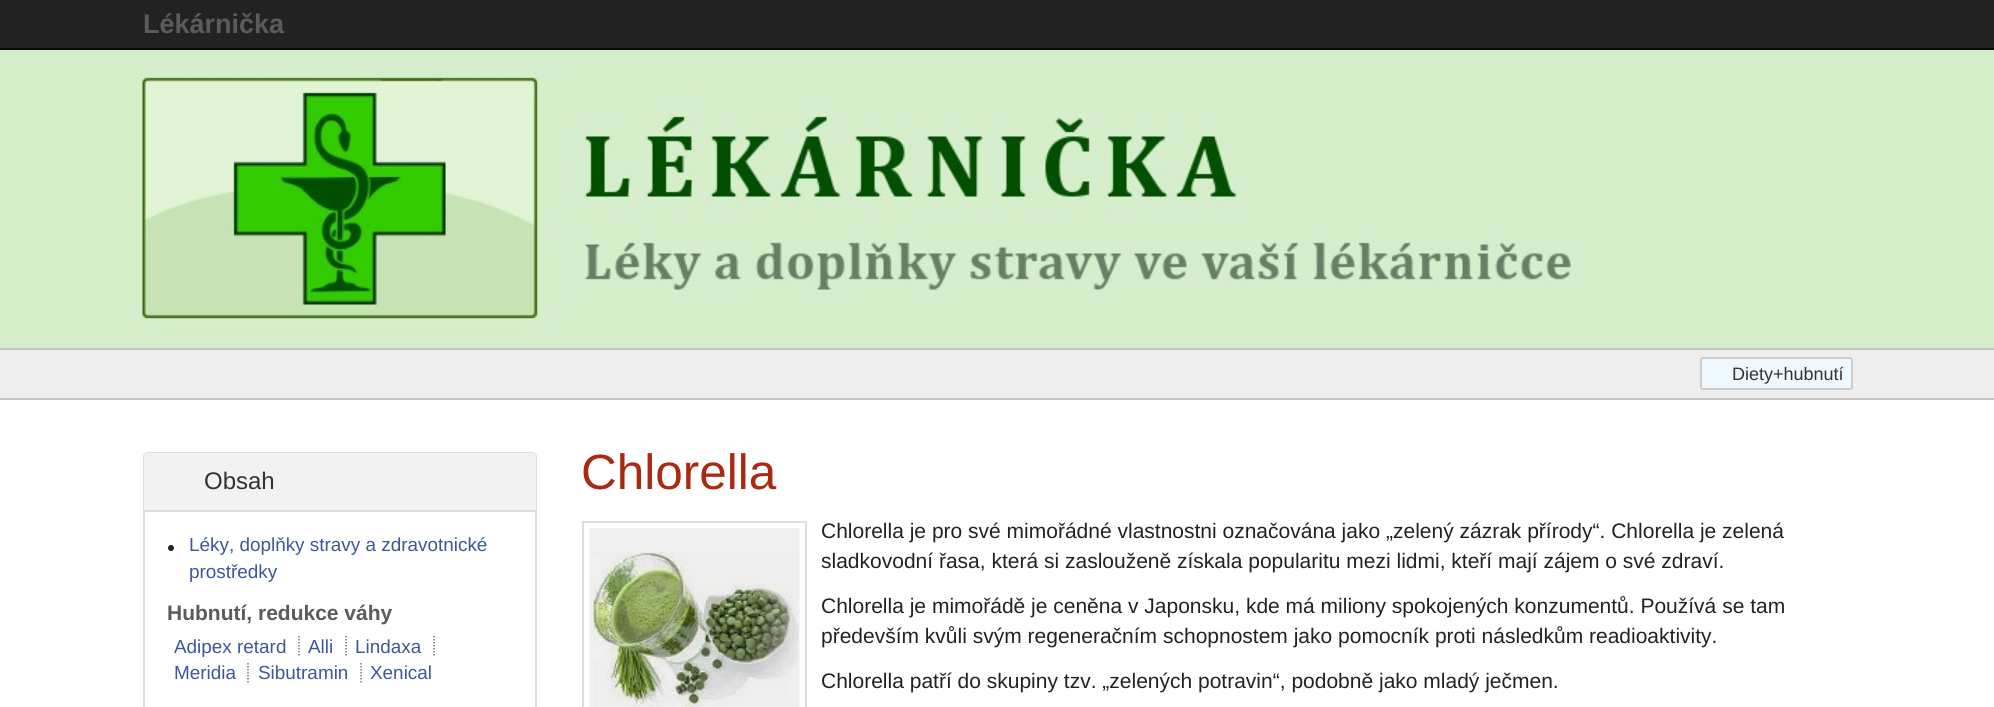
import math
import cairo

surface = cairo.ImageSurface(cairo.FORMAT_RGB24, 1994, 707)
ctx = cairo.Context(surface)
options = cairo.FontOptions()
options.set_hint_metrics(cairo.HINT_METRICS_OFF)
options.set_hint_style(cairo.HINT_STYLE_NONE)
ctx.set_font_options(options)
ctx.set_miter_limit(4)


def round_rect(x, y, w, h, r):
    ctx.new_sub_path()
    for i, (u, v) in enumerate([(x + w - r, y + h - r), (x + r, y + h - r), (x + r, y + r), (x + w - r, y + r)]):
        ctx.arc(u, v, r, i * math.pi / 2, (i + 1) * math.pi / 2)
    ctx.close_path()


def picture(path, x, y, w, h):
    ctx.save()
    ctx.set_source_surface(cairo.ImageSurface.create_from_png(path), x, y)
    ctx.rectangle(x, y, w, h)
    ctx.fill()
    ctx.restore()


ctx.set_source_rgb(1, 1, 1)
ctx.paint()
ctx.set_source_rgb(0.133, 0.133, 0.133)
ctx.rectangle(0, 0, 1994, 48)
ctx.fill()
ctx.set_source_rgb(0.031, 0.031, 0.031)
ctx.rectangle(0, 48, 1994, 2)
ctx.fill()
ctx.select_font_face("Liberation Sans", cairo.FONT_SLANT_NORMAL, cairo.FONT_WEIGHT_BOLD)
ctx.set_font_size(27)
ctx.set_source_rgb(0.357, 0.357, 0.357)
ctx.move_to(143, 33)
ctx.show_text("Lékárnička")
ctx.set_source_rgb(0.843, 0.933, 0.804)
ctx.rectangle(0, 50, 1994, 298)
ctx.fill()
ctx.set_source_rgb(0.769, 0.769, 0.769)
ctx.rectangle(0, 348, 1994, 2)
ctx.fill()
picture("img1.png", 142, 71, 1429, 265)
ctx.set_source_rgb(0.933, 0.933, 0.933)
ctx.rectangle(0, 350, 1994, 48)
ctx.fill()
ctx.set_source_rgb(0.769, 0.769, 0.769)
ctx.rectangle(0, 398, 1994, 2)
ctx.fill()
ctx.set_source_rgb(0.941, 0.969, 1)
round_rect(1701, 358, 151, 31, 2)
ctx.fill_preserve()
ctx.set_source_rgb(0.8, 0.8, 0.8)
ctx.stroke()
ctx.select_font_face("Liberation Sans")
ctx.set_font_size(18)
ctx.set_source_rgb(0.2, 0.2, 0.2)
ctx.move_to(1732, 380)
ctx.show_text("Diety+hubnutí")
round_rect(144, 453, 392, 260, 4)
ctx.set_source_rgb(0.867, 0.867, 0.867)
ctx.stroke()
ctx.set_source_rgb(0.949, 0.949, 0.949)
ctx.new_path()
ctx.move_to(147, 453)
ctx.line_to(533, 453)
ctx.curve_to(534.5, 453, 536, 454.5, 536, 456)
ctx.line_to(536, 512)
ctx.line_to(144, 512)
ctx.line_to(144, 456)
ctx.curve_to(144, 454.5, 145.5, 453, 147, 453)
ctx.close_path()
ctx.fill()
ctx.set_source_rgb(0.867, 0.867, 0.867)
ctx.rectangle(144, 510, 392, 2)
ctx.fill()
ctx.set_font_size(24)
ctx.set_source_rgb(0.2, 0.2, 0.2)
ctx.move_to(204, 489)
ctx.show_text("Obsah")
ctx.set_source_rgb(0.133, 0.133, 0.133)
ctx.new_path()
ctx.arc(171, 548, 3, 0, 2 * math.pi)
ctx.fill()
ctx.set_font_size(18.9)
ctx.set_source_rgb(0.235, 0.341, 0.612)
ctx.move_to(189, 551)
ctx.show_text("Léky, doplňky stravy a zdravotnické")
ctx.move_to(189, 578)
ctx.show_text("prostředky")
ctx.select_font_face("Liberation Sans", cairo.FONT_SLANT_NORMAL, cairo.FONT_WEIGHT_BOLD)
ctx.set_font_size(21)
ctx.set_source_rgb(0.357, 0.357, 0.357)
ctx.move_to(167, 620)
ctx.show_text("Hubnutí, redukce váhy")
ctx.select_font_face("Liberation Sans")
ctx.set_font_size(18.9)
ctx.set_source_rgb(0.235, 0.341, 0.612)
ctx.move_to(174, 653)
ctx.show_text("Adipex retard")
ctx.new_path()
ctx.move_to(299, 636)
ctx.line_to(299, 657)
ctx.set_source_rgb(0.467, 0.467, 0.467)
ctx.set_line_width(1.5)
ctx.set_dash([1.5, 1.5])
ctx.stroke()
ctx.set_source_rgb(0.235, 0.341, 0.612)
ctx.move_to(308, 653)
ctx.show_text("Alli")
ctx.new_path()
ctx.move_to(346, 636)
ctx.line_to(346, 657)
ctx.set_source_rgb(0.467, 0.467, 0.467)
ctx.stroke()
ctx.set_source_rgb(0.235, 0.341, 0.612)
ctx.move_to(355, 653)
ctx.show_text("Lindaxa")
ctx.new_path()
ctx.move_to(434, 636)
ctx.line_to(434, 657)
ctx.set_source_rgb(0.467, 0.467, 0.467)
ctx.stroke()
ctx.set_source_rgb(0.235, 0.341, 0.612)
ctx.move_to(174, 679)
ctx.show_text("Meridia")
ctx.new_path()
ctx.move_to(248, 663)
ctx.line_to(248, 684)
ctx.set_source_rgb(0.467, 0.467, 0.467)
ctx.stroke()
ctx.set_source_rgb(0.235, 0.341, 0.612)
ctx.move_to(258, 679)
ctx.show_text("Sibutramin")
ctx.new_path()
ctx.move_to(361, 663)
ctx.line_to(361, 684)
ctx.set_source_rgb(0.467, 0.467, 0.467)
ctx.stroke()
ctx.set_source_rgb(0.235, 0.341, 0.612)
ctx.move_to(370, 679)
ctx.show_text("Xenical")
ctx.set_font_size(49.5)
ctx.set_source_rgb(0.663, 0.161, 0.067)
ctx.move_to(581, 489)
ctx.show_text("Chlorella")
ctx.rectangle(583, 522, 223, 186)
ctx.set_source_rgb(0.867, 0.867, 0.867)
ctx.set_line_width(2)
ctx.set_dash([])
ctx.stroke()
picture("img2.png", 589, 528, 211, 179)
ctx.set_font_size(21)
ctx.set_source_rgb(0.133, 0.133, 0.133)
ctx.move_to(821, 538)
ctx.show_text("Chlorella je pro své mimořádné vlastnostni označována jako „zelený zázrak přírody“. Chlorella je zelená")
ctx.move_to(821, 568)
ctx.show_text("sladkovodní řasa, která si zaslouženě získala popularitu mezi lidmi, kteří mají zájem o své zdraví.")
ctx.move_to(821, 613)
ctx.show_text("Chlorella je mimořádě je ceněna v Japonsku, kde má miliony spokojených konzumentů. Používá se tam")
ctx.move_to(821, 643)
ctx.show_text("především kvůli svým regeneračním schopnostem jako pomocník proti následkům readioaktivity.")
ctx.move_to(821, 688)
ctx.show_text("Chlorella patří do skupiny tzv. „zelených potravin“, podobně jako mladý ječmen.")
surface.write_to_png("page.png")
